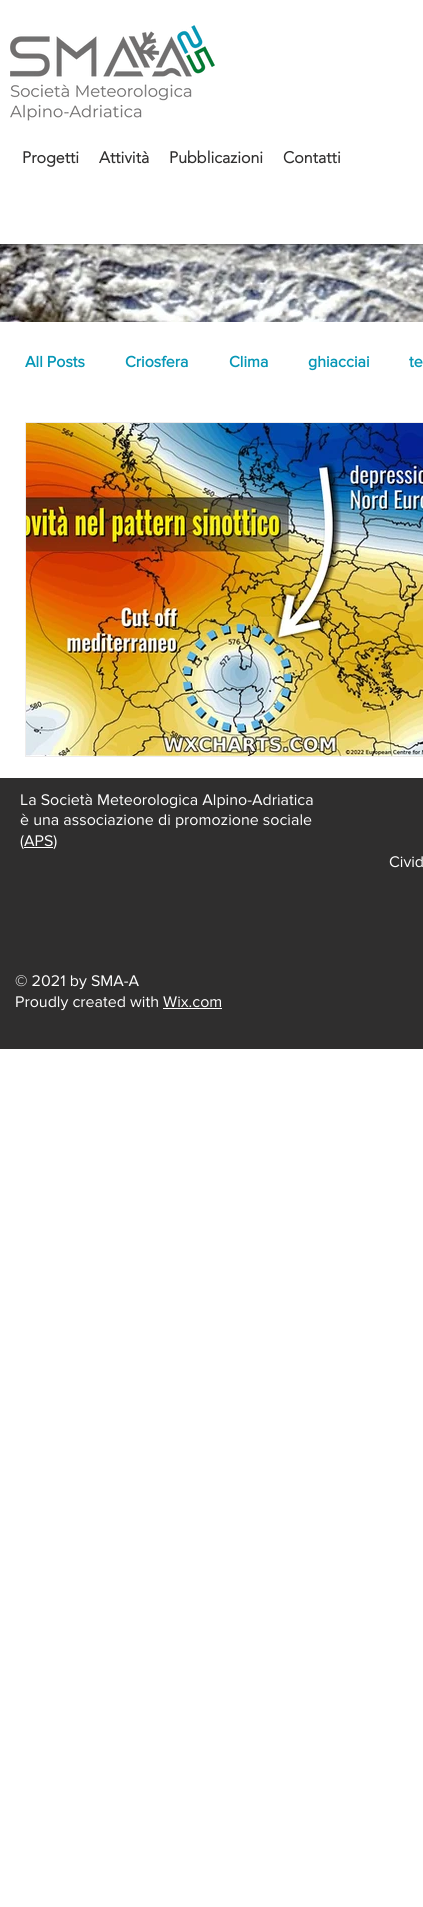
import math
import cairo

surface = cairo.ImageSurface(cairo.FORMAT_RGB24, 423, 1907)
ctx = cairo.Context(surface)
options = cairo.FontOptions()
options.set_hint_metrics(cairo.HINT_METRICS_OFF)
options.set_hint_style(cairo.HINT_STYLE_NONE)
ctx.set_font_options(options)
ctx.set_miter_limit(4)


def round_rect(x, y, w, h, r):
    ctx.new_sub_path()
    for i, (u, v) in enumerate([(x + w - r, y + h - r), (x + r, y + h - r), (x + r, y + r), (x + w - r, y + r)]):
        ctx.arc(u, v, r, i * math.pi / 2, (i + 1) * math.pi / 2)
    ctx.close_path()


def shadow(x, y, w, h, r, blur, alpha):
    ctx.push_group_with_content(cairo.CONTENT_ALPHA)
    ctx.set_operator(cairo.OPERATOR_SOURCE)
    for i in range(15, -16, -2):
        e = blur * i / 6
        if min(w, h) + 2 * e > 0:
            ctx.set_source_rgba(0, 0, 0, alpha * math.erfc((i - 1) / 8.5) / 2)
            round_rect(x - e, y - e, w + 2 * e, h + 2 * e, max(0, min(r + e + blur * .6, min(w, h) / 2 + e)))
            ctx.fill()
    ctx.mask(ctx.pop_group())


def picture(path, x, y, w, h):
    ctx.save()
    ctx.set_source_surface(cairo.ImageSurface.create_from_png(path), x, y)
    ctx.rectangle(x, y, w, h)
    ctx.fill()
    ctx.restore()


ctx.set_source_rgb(1, 1, 1)
ctx.paint()
picture("img2.png", 0, 244, 423, 78)
ctx.save()
ctx.rectangle(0, 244, 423, 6)
ctx.clip()
ctx.set_source_rgb(0, 0, 0)
shadow(0, 1, 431, 244, 0, 2.5, 0.7)
ctx.restore()
picture("img1.png", 10, 25, 205, 96)
ctx.select_font_face("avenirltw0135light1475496", cairo.FONT_SLANT_NORMAL, cairo.FONT_WEIGHT_BOLD)
ctx.set_font_size(16)
ctx.set_source_rgb(0.184, 0.18, 0.18)
ctx.move_to(22, 163)
ctx.show_text("Progetti")
ctx.move_to(99, 163)
ctx.show_text("Attività")
ctx.move_to(169, 163)
ctx.show_text("Pubblicazioni")
ctx.move_to(283, 163)
ctx.show_text("Contatti")
ctx.select_font_face("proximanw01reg", cairo.FONT_SLANT_NORMAL, cairo.FONT_WEIGHT_BOLD)
ctx.set_source_rgb(0.024, 0.592, 0.714)
ctx.move_to(25, 367)
ctx.show_text("All Posts")
ctx.move_to(125, 367)
ctx.show_text("Criosfera")
ctx.move_to(229, 367)
ctx.show_text("Clima")
ctx.move_to(308, 367)
ctx.show_text("ghiacciai")
ctx.move_to(409, 367)
ctx.show_text("te")
ctx.rectangle(25.5, 422.5, 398, 334)
ctx.set_source_rgb(0.933, 0.925, 0.925)
ctx.set_line_width(1)
ctx.stroke()
picture("img3.png", 26, 423, 397, 333)
ctx.set_source_rgb(0.184, 0.18, 0.18)
ctx.rectangle(0, 778, 423, 271)
ctx.fill()
ctx.select_font_face("proximanw01reg")
ctx.set_source_rgb(1, 1, 1)
ctx.move_to(20, 805)
ctx.show_text("La Società Meteorologica Alpino-Adriatica")
ctx.move_to(20, 825)
ctx.show_text("è una associazione di promozione sociale")
ctx.move_to(20, 846)
ctx.show_text("(APS)")
ctx.rectangle(24, 847, 29, 1)
ctx.fill()
ctx.move_to(389, 867)
ctx.show_text("Civid")
ctx.move_to(15, 986)
ctx.show_text("© 2021 by SMA-A")
ctx.move_to(15, 1007)
ctx.show_text("Proudly created with Wix.com")
ctx.rectangle(163, 1008, 59, 1)
ctx.fill()
surface.write_to_png("page.png")
